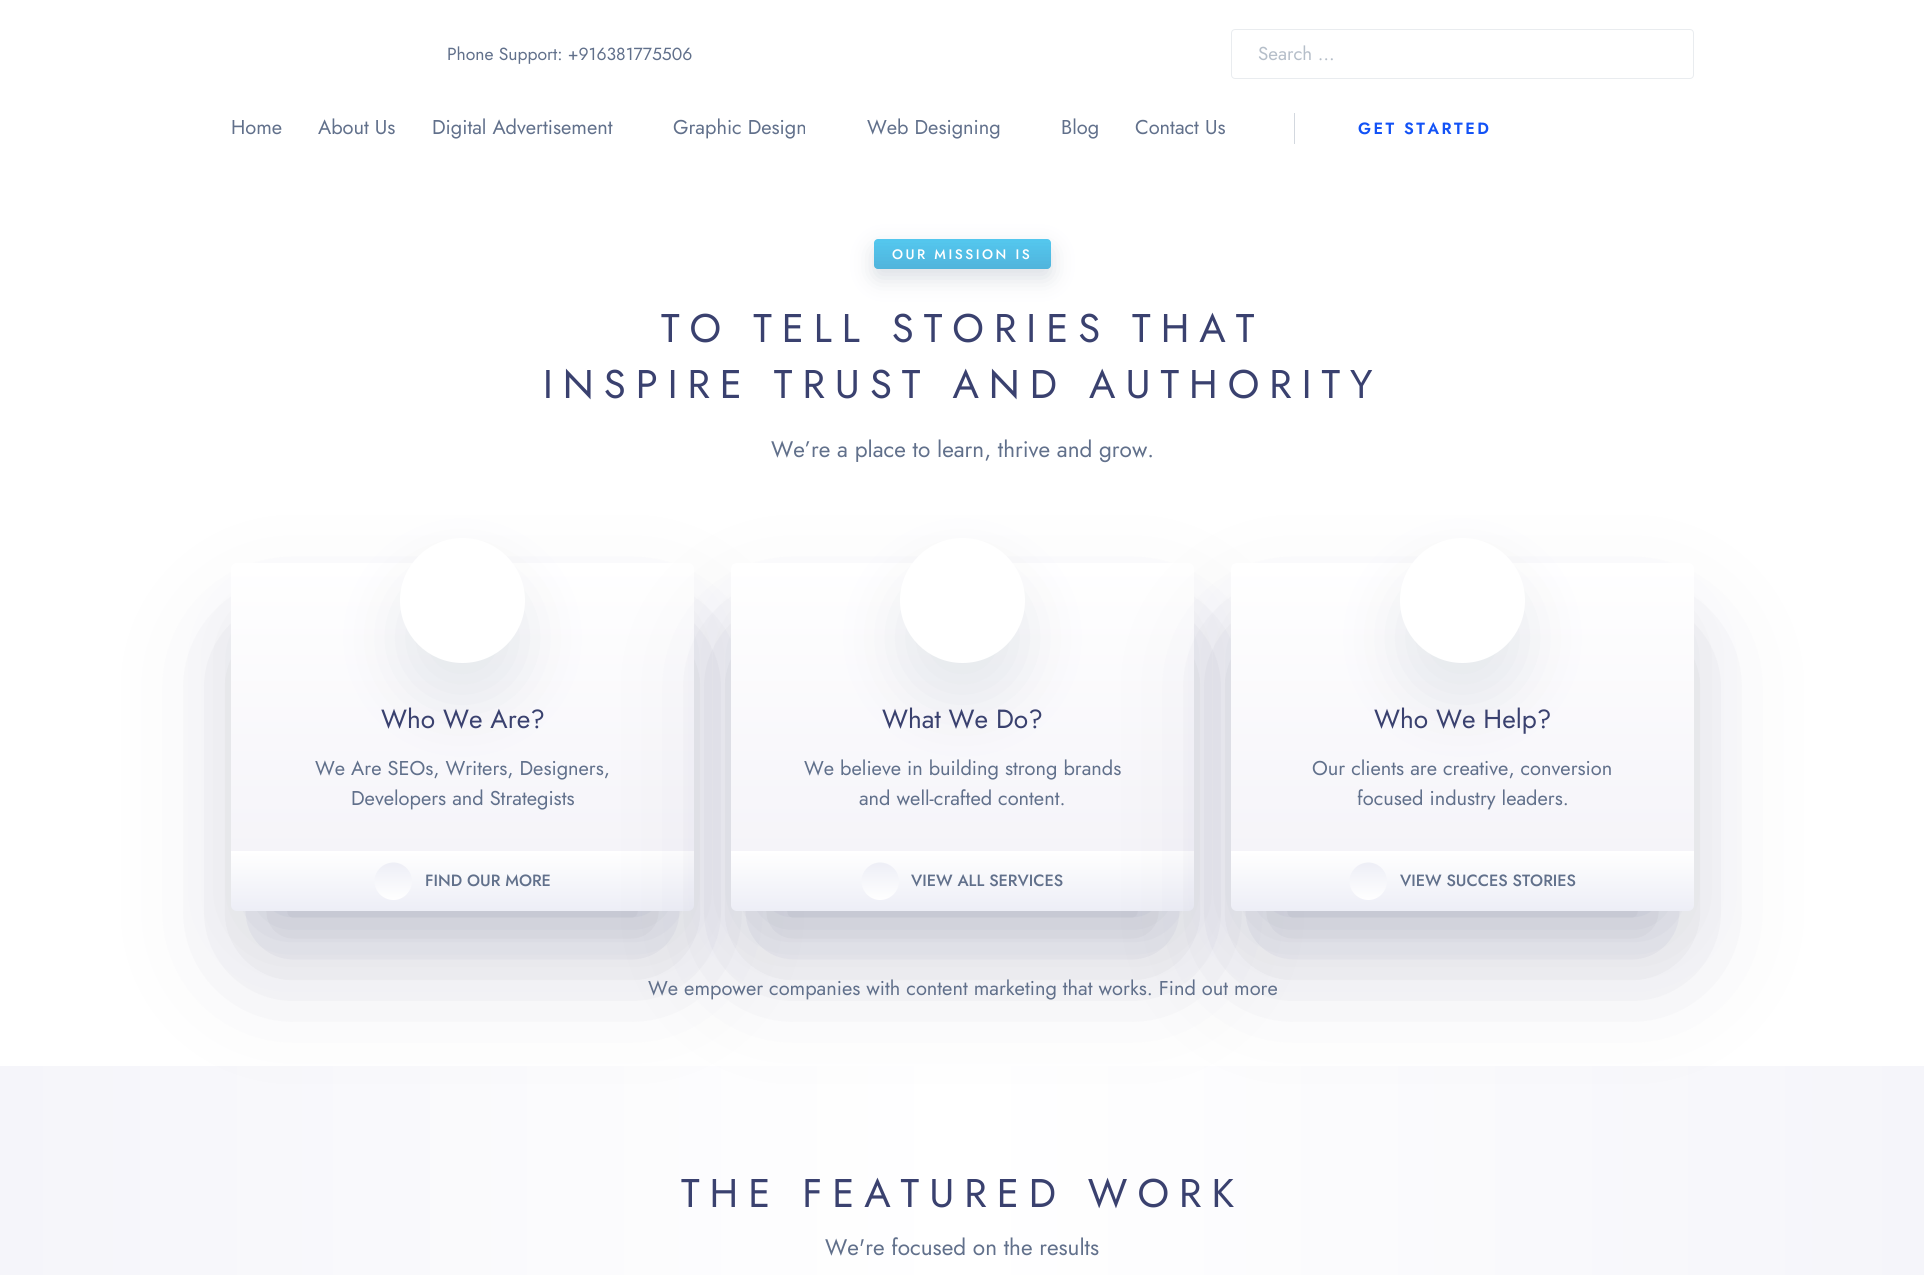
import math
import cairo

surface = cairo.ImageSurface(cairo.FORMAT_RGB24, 1924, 1275)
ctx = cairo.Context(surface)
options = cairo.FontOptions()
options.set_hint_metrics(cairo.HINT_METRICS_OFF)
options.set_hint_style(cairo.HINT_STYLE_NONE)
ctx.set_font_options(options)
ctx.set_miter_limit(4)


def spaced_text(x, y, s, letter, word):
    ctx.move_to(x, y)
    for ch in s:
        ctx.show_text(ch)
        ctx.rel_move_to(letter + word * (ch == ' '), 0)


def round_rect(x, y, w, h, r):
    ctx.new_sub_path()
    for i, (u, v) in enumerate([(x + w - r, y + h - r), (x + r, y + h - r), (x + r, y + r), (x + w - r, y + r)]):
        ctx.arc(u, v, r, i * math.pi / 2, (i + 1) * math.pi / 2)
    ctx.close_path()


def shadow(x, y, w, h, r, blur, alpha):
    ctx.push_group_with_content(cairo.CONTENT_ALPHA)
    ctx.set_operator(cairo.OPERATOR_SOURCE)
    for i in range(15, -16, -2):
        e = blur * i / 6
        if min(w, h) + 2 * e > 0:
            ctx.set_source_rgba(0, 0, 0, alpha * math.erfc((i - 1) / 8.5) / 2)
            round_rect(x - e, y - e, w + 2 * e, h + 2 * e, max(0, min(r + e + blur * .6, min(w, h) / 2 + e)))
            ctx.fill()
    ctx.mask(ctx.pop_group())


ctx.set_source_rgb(1, 1, 1)
ctx.paint()
ctx.select_font_face("Jost")
ctx.set_font_size(17.5)
ctx.set_source_rgb(0.38, 0.439, 0.545)
ctx.move_to(447, 60)
ctx.show_text("Phone Support: +916381775506")
round_rect(1231.5, 29.5, 462, 49, 3.5)
ctx.set_source_rgb(0.914, 0.922, 0.937)
ctx.set_line_width(1)
ctx.stroke()
ctx.set_font_size(18.75)
ctx.set_source_rgb(0.71, 0.745, 0.788)
ctx.move_to(1258, 60)
ctx.show_text("Search …")
ctx.set_font_size(20)
ctx.set_source_rgb(0.38, 0.439, 0.545)
ctx.move_to(231, 134)
ctx.show_text("Home")
ctx.move_to(318, 134)
ctx.show_text("About Us")
ctx.move_to(432, 134)
ctx.show_text("Digital Advertisement")
ctx.move_to(673, 134)
ctx.show_text("Graphic Design")
ctx.move_to(867, 134)
ctx.show_text("Web Designing")
ctx.move_to(1061, 134)
ctx.show_text("Blog")
ctx.move_to(1135, 134)
ctx.show_text("Contact Us")
ctx.set_source_rgb(0.827, 0.847, 0.875)
ctx.rectangle(1294, 113, 1, 31)
ctx.fill()
ctx.select_font_face("Jost SemiBold")
ctx.set_font_size(16.25)
ctx.set_source_rgb(0.071, 0.322, 0.961)
spaced_text(1358, 134, "GET STARTED", 2.5, 0)
ctx.set_source_rgb(0.42, 0.486, 0.576)
shadow(874, 248, 177, 30, 4, 11, 0.25)
ctx.set_source_rgb(0.329, 0.784, 0.937)
round_rect(874, 239, 177, 30, 4)
ctx.fill()
gradient = cairo.LinearGradient(963, 239, 963, 269)
gradient.add_color_stop_rgba(0, 0.227, 0.255, 0.435, 0)
gradient.add_color_stop_rgba(1, 0.227, 0.255, 0.435, 0.15)
ctx.set_source(gradient)
round_rect(874, 239, 177, 30, 4)
ctx.fill()
ctx.select_font_face("Jost Medium")
ctx.set_font_size(13.75)
ctx.set_source_rgb(1, 1, 1)
spaced_text(892, 259, "OUR MISSION IS", 2.5, 0)
ctx.select_font_face("Jost")
ctx.set_font_size(40)
ctx.set_source_rgb(0.227, 0.255, 0.435)
spaced_text(661, 342, "TO TELL STORIES THAT", 10, 0)
spaced_text(543, 398, "INSPIRE TRUST AND AUTHORITY", 10, 0)
ctx.set_font_size(22.5)
ctx.set_source_rgb(0.38, 0.439, 0.545)
ctx.move_to(771, 457)
ctx.show_text("We’re a place to learn, thrive and grow.")
ctx.set_source_rgb(0.42, 0.486, 0.576)
shadow(269, 638, 387, 273, 0, 37.5, 0.3)
gradient = cairo.LinearGradient(0, 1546, 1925, 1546)
gradient.add_color_stop_rgba(0, 0.961, 0.961, 0.98, 1)
gradient.add_color_stop_rgba(0.5, 1, 1, 1, 1)
gradient.add_color_stop_rgba(1, 0.961, 0.961, 0.98, 1)
ctx.set_source(gradient)
ctx.rectangle(0, 1066, 1924, 209)
ctx.fill()
ctx.set_source_rgb(0.196, 0.196, 0.365)
shadow(256, 650, 413, 299, 0, 62.5, 0.25)
gradient = cairo.LinearGradient(463, 563, 463, 851)
gradient.add_color_stop_rgba(0, 1, 1, 1, 1)
gradient.add_color_stop_rgba(1, 0.961, 0.957, 0.976, 1)
ctx.set_source(gradient)
ctx.new_path()
ctx.move_to(237, 563)
ctx.line_to(688, 563)
ctx.curve_to(691.5, 563, 694, 565.5, 694, 569)
ctx.line_to(694, 851)
ctx.line_to(231, 851)
ctx.line_to(231, 569)
ctx.curve_to(231, 565.5, 233.5, 563, 237, 563)
ctx.close_path()
ctx.fill()
ctx.set_source_rgb(0.42, 0.486, 0.576)
shadow(400, 575, 125, 125, 62.5, 31, 0.15)
ctx.set_source_rgb(1, 1, 1)
ctx.arc(462.5, 600.5, 62.5, 0, 2 * math.pi)
ctx.fill()
ctx.set_font_size(26.25)
ctx.set_source_rgb(0.227, 0.255, 0.435)
ctx.move_to(381, 728)
ctx.show_text("Who We Are?")
ctx.set_font_size(20)
ctx.set_source_rgb(0.38, 0.439, 0.545)
ctx.move_to(315, 775)
ctx.show_text("We Are SEOs, Writers, Designers,")
ctx.move_to(351, 805)
ctx.show_text("Developers and Strategists")
gradient = cairo.LinearGradient(463, 851, 463, 911)
gradient.add_color_stop_rgba(0, 1, 1, 1, 1)
gradient.add_color_stop_rgba(1, 0.929, 0.933, 0.965, 1)
ctx.set_source(gradient)
ctx.new_path()
ctx.move_to(231, 851)
ctx.line_to(694, 851)
ctx.line_to(694, 905)
ctx.curve_to(694, 908.5, 691.5, 911, 688, 911)
ctx.line_to(237, 911)
ctx.curve_to(233.5, 911, 231, 908.5, 231, 905)
ctx.close_path()
ctx.fill()
gradient = cairo.LinearGradient(393, 900, 393, 862)
gradient.add_color_stop_rgba(0, 1, 1, 1, 1)
gradient.add_color_stop_rgba(1, 0.929, 0.933, 0.965, 1)
ctx.set_source(gradient)
ctx.new_path()
ctx.move_to(374.5, 881)
ctx.curve_to(374.5, 871, 383, 862.5, 393.5, 862.5)
ctx.curve_to(403.5, 862.5, 412, 871, 412, 881)
ctx.curve_to(412, 891.5, 403.5, 900, 393.5, 900)
ctx.curve_to(383, 900, 374.5, 891.5, 374.5, 881)
ctx.close_path()
ctx.fill()
ctx.select_font_face("Jost Medium")
ctx.set_font_size(16.25)
ctx.set_source_rgb(0.38, 0.439, 0.545)
ctx.move_to(425, 886)
ctx.show_text("FIND OUR MORE")
ctx.set_source_rgb(0.42, 0.486, 0.576)
shadow(769, 638, 387, 273, 0, 37.5, 0.3)
ctx.set_source_rgb(0.196, 0.196, 0.365)
shadow(756, 650, 413, 299, 0, 62.5, 0.25)
gradient = cairo.LinearGradient(963, 563, 963, 851)
gradient.add_color_stop_rgba(0, 1, 1, 1, 1)
gradient.add_color_stop_rgba(1, 0.961, 0.957, 0.976, 1)
ctx.set_source(gradient)
ctx.new_path()
ctx.move_to(737, 563)
ctx.line_to(1188, 563)
ctx.curve_to(1191.5, 563, 1194, 565.5, 1194, 569)
ctx.line_to(1194, 851)
ctx.line_to(731, 851)
ctx.line_to(731, 569)
ctx.curve_to(731, 565.5, 733.5, 563, 737, 563)
ctx.close_path()
ctx.fill()
ctx.set_source_rgb(0.42, 0.486, 0.576)
shadow(900, 575, 125, 125, 62.5, 31, 0.15)
ctx.set_source_rgb(1, 1, 1)
ctx.arc(962.5, 600.5, 62.5, 0, 2 * math.pi)
ctx.fill()
ctx.select_font_face("Jost")
ctx.set_font_size(26.25)
ctx.set_source_rgb(0.227, 0.255, 0.435)
ctx.move_to(882, 728)
ctx.show_text("What We Do?")
ctx.set_font_size(20)
ctx.set_source_rgb(0.38, 0.439, 0.545)
ctx.move_to(804, 775)
ctx.show_text("We believe in building strong brands")
ctx.move_to(859, 805)
ctx.show_text("and well-crafted content.")
gradient = cairo.LinearGradient(963, 851, 963, 911)
gradient.add_color_stop_rgba(0, 1, 1, 1, 1)
gradient.add_color_stop_rgba(1, 0.929, 0.933, 0.965, 1)
ctx.set_source(gradient)
ctx.new_path()
ctx.move_to(731, 851)
ctx.line_to(1194, 851)
ctx.line_to(1194, 905)
ctx.curve_to(1194, 908.5, 1191.5, 911, 1188, 911)
ctx.line_to(737, 911)
ctx.curve_to(733.5, 911, 731, 908.5, 731, 905)
ctx.close_path()
ctx.fill()
gradient = cairo.LinearGradient(880, 900, 880, 862)
gradient.add_color_stop_rgba(0, 1, 1, 1, 1)
gradient.add_color_stop_rgba(1, 0.929, 0.933, 0.965, 1)
ctx.set_source(gradient)
ctx.new_path()
ctx.move_to(861.5, 881)
ctx.curve_to(861.5, 871, 870, 862.5, 880, 862.5)
ctx.curve_to(890.5, 862.5, 899, 871, 899, 881)
ctx.curve_to(899, 891.5, 890.5, 900, 880, 900)
ctx.curve_to(870, 900, 861.5, 891.5, 861.5, 881)
ctx.close_path()
ctx.fill()
ctx.select_font_face("Jost Medium")
ctx.set_font_size(16.25)
ctx.set_source_rgb(0.38, 0.439, 0.545)
ctx.move_to(911, 886)
ctx.show_text("VIEW ALL SERVICES")
ctx.set_source_rgb(0.42, 0.486, 0.576)
shadow(1269, 638, 387, 273, 0, 37.5, 0.3)
ctx.set_source_rgb(0.196, 0.196, 0.365)
shadow(1256, 650, 413, 299, 0, 62.5, 0.25)
gradient = cairo.LinearGradient(1463, 563, 1463, 851)
gradient.add_color_stop_rgba(0, 1, 1, 1, 1)
gradient.add_color_stop_rgba(1, 0.961, 0.957, 0.976, 1)
ctx.set_source(gradient)
ctx.new_path()
ctx.move_to(1237, 563)
ctx.line_to(1688, 563)
ctx.curve_to(1691.5, 563, 1694, 565.5, 1694, 569)
ctx.line_to(1694, 851)
ctx.line_to(1231, 851)
ctx.line_to(1231, 569)
ctx.curve_to(1231, 565.5, 1233.5, 563, 1237, 563)
ctx.close_path()
ctx.fill()
ctx.set_source_rgb(0.42, 0.486, 0.576)
shadow(1400, 575, 125, 125, 62.5, 31, 0.15)
ctx.set_source_rgb(1, 1, 1)
ctx.arc(1462.5, 600.5, 62.5, 0, 2 * math.pi)
ctx.fill()
ctx.select_font_face("Jost")
ctx.set_font_size(26.25)
ctx.set_source_rgb(0.227, 0.255, 0.435)
ctx.move_to(1374, 728)
ctx.show_text("Who We Help?")
ctx.set_font_size(20)
ctx.set_source_rgb(0.38, 0.439, 0.545)
ctx.move_to(1312, 775)
ctx.show_text("Our clients are creative, conversion")
ctx.move_to(1357, 805)
ctx.show_text("focused industry leaders.")
gradient = cairo.LinearGradient(1463, 851, 1463, 911)
gradient.add_color_stop_rgba(0, 1, 1, 1, 1)
gradient.add_color_stop_rgba(1, 0.929, 0.933, 0.965, 1)
ctx.set_source(gradient)
ctx.new_path()
ctx.move_to(1231, 851)
ctx.line_to(1694, 851)
ctx.line_to(1694, 905)
ctx.curve_to(1694, 908.5, 1691.5, 911, 1688, 911)
ctx.line_to(1237, 911)
ctx.curve_to(1233.5, 911, 1231, 908.5, 1231, 905)
ctx.close_path()
ctx.fill()
gradient = cairo.LinearGradient(1368, 900, 1368, 862)
gradient.add_color_stop_rgba(0, 1, 1, 1, 1)
gradient.add_color_stop_rgba(1, 0.929, 0.933, 0.965, 1)
ctx.set_source(gradient)
ctx.new_path()
ctx.move_to(1349.5, 881)
ctx.curve_to(1349.5, 871, 1358, 862.5, 1368.5, 862.5)
ctx.curve_to(1378.5, 862.5, 1387, 871, 1387, 881)
ctx.curve_to(1387, 891.5, 1378.5, 900, 1368.5, 900)
ctx.curve_to(1358, 900, 1349.5, 891.5, 1349.5, 881)
ctx.close_path()
ctx.fill()
ctx.select_font_face("Jost Medium")
ctx.set_font_size(16.25)
ctx.set_source_rgb(0.38, 0.439, 0.545)
ctx.move_to(1400, 886)
ctx.show_text("VIEW SUCCES STORIES")
ctx.select_font_face("Jost")
ctx.set_font_size(20)
ctx.move_to(648, 995)
ctx.show_text("We empower companies with content marketing that works. Find out more")
ctx.set_font_size(40)
ctx.set_source_rgb(0.227, 0.255, 0.435)
spaced_text(681, 1207, "THE FEATURED WORK", 10, 0)
ctx.set_font_size(22.5)
ctx.set_source_rgb(0.38, 0.439, 0.545)
ctx.move_to(825, 1255)
ctx.show_text("We're focused on the results")
surface.write_to_png("page.png")
